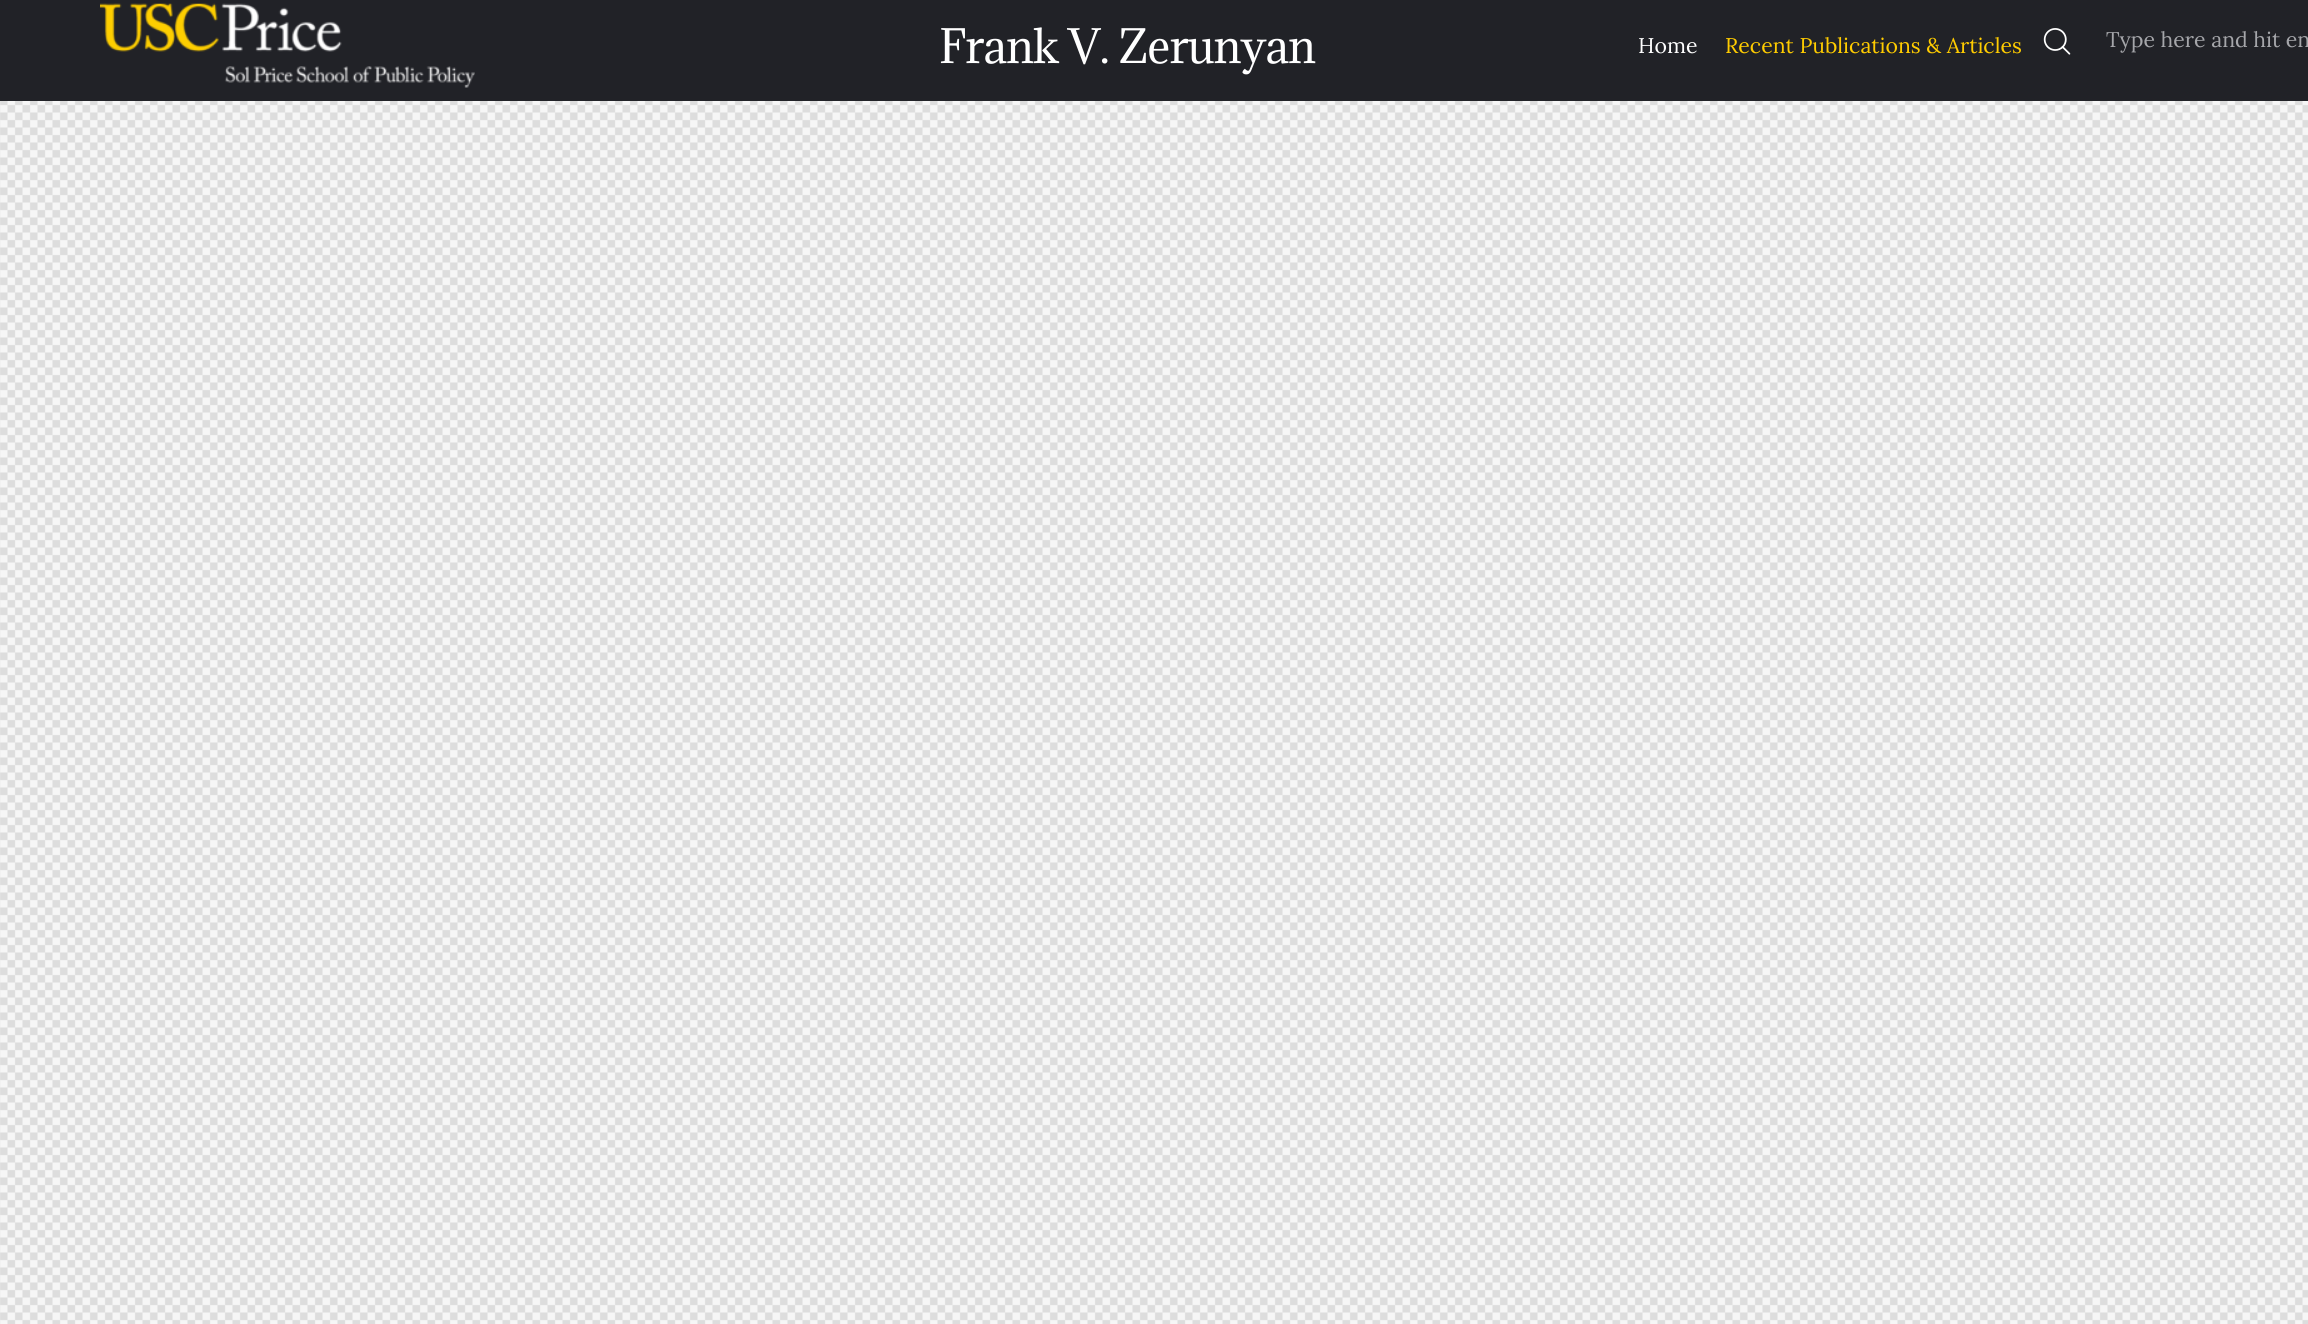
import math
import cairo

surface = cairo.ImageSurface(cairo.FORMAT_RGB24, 2308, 1324)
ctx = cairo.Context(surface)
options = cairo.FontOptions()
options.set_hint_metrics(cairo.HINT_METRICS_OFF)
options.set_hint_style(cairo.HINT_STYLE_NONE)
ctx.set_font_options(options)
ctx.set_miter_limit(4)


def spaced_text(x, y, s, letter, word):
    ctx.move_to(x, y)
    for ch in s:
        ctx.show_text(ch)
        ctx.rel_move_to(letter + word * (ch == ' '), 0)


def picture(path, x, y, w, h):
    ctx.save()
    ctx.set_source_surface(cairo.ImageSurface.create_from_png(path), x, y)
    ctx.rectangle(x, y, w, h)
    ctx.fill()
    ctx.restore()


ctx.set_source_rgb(1, 1, 1)
ctx.paint()
picture("img1.png", 0, 101, 2308, 1223)
ctx.set_source_rgb(0.129, 0.133, 0.153)
ctx.rectangle(0, 0, 2308, 101)
ctx.fill()
picture("img2.png", 100, 3, 375, 85)
ctx.select_font_face("Adamina")
ctx.set_font_size(43.75)
ctx.set_source_rgb(1, 1, 1)
spaced_text(939, 63, "Frank V. Zerunyan", -0.9, 0)
ctx.select_font_face("Lora")
ctx.set_font_size(21.25)
ctx.move_to(1638, 53)
ctx.show_text("Home")
ctx.set_source_rgb(1, 0.8, 0)
ctx.move_to(1725, 53)
ctx.show_text("Recent Publications & Articles")
picture("img3.png", 2043, 28, 28, 27)
ctx.set_source_rgb(0.647, 0.651, 0.667)
ctx.move_to(2106, 47)
ctx.show_text("Type here and hit en")
surface.write_to_png("page.png")
